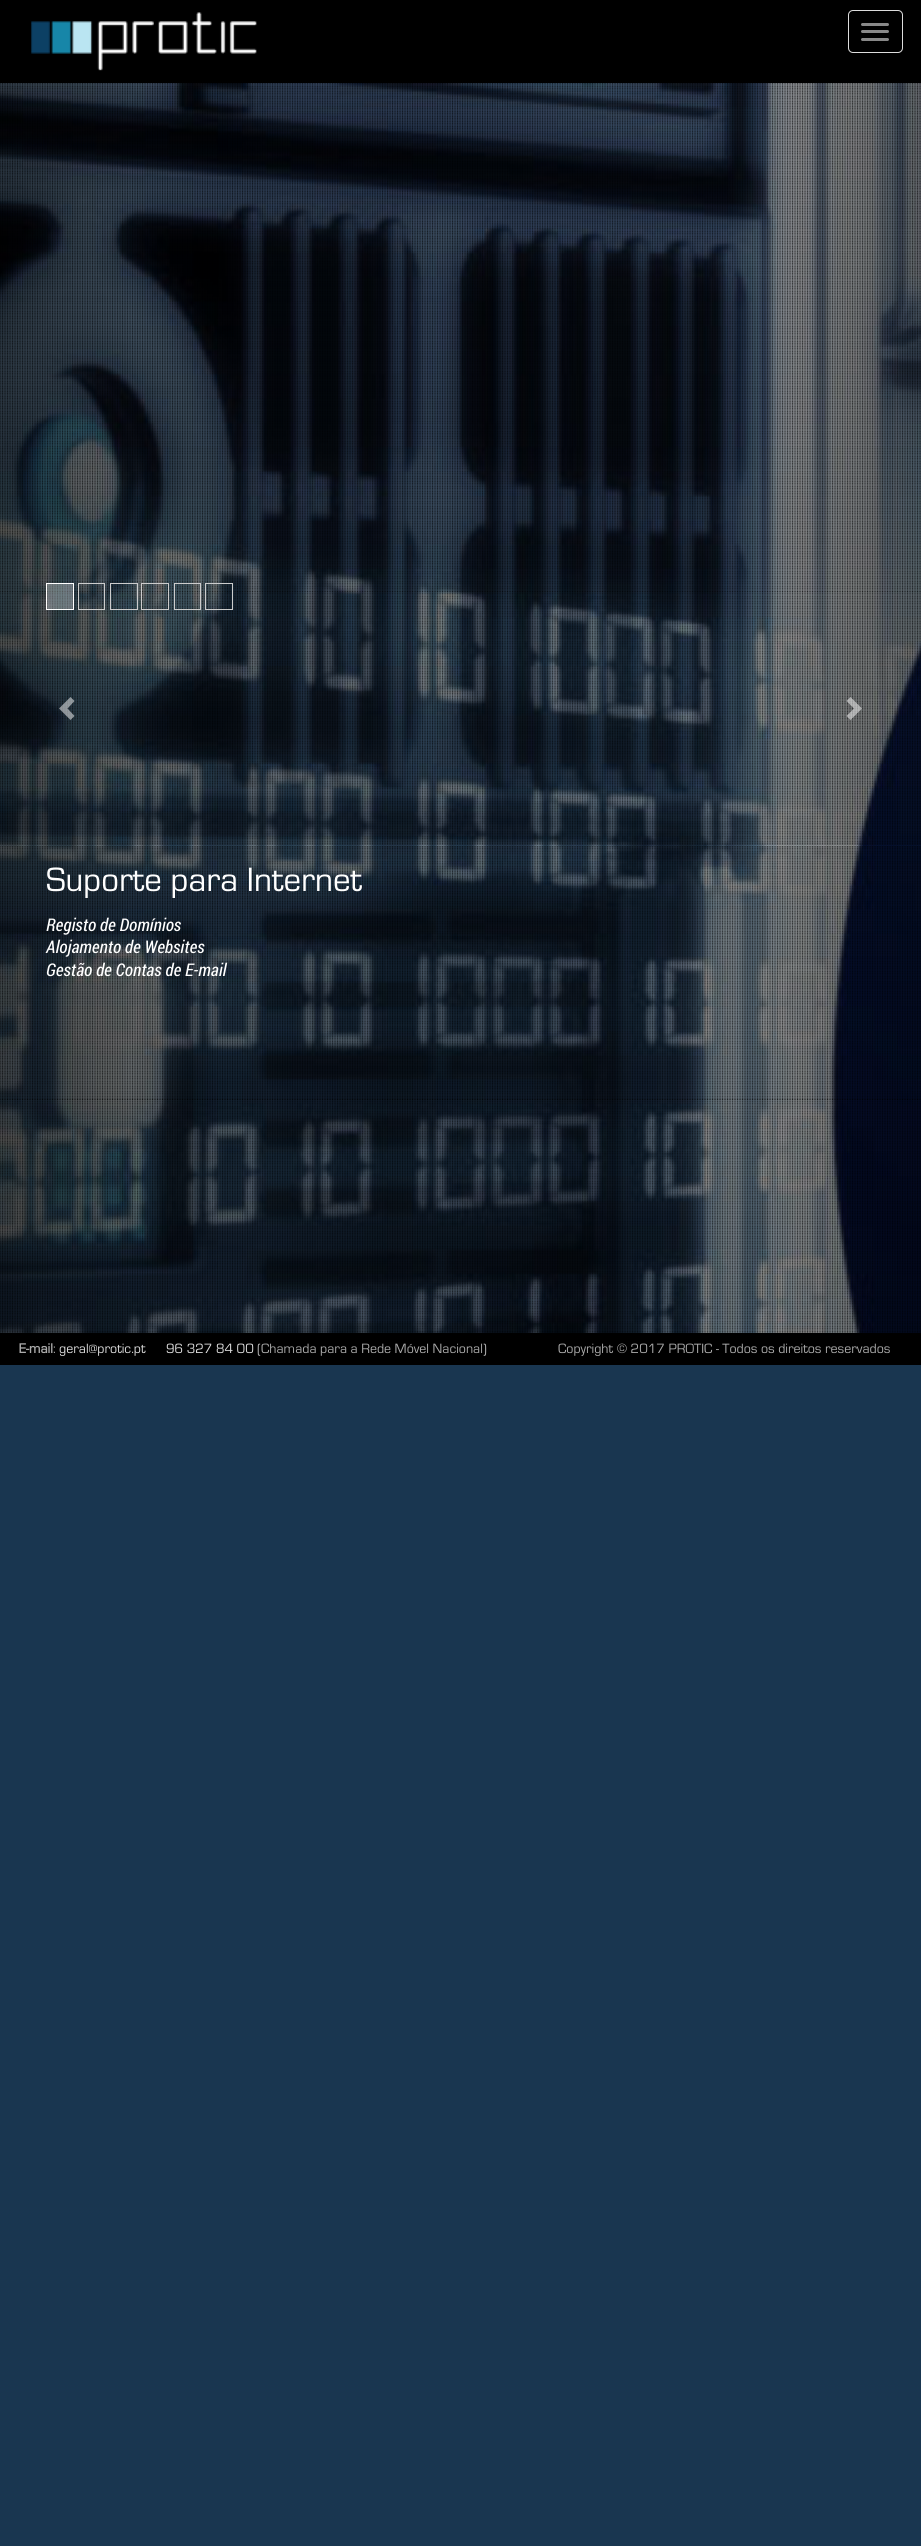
import math
import cairo

surface = cairo.ImageSurface(cairo.FORMAT_RGB24, 921, 2546)
ctx = cairo.Context(surface)
options = cairo.FontOptions()
options.set_hint_metrics(cairo.HINT_METRICS_OFF)
options.set_hint_style(cairo.HINT_STYLE_NONE)
ctx.set_font_options(options)
ctx.set_miter_limit(4)


def round_rect(x, y, w, h, r):
    ctx.new_sub_path()
    for i, (u, v) in enumerate([(x + w - r, y + h - r), (x + r, y + h - r), (x + r, y + r), (x + w - r, y + r)]):
        ctx.arc(u, v, r, i * math.pi / 2, (i + 1) * math.pi / 2)
    ctx.close_path()


def picture(path, x, y, w, h):
    ctx.save()
    ctx.set_source_surface(cairo.ImageSurface.create_from_png(path), x, y)
    ctx.rectangle(x, y, w, h)
    ctx.fill()
    ctx.restore()


ctx.set_source_rgb(0.098, 0.212, 0.314)
ctx.paint()
ctx.set_source_rgb(0, 0, 0)
ctx.rectangle(0, 0, 921, 83)
ctx.fill()
picture("img1.png", 31, 12, 226, 59)
round_rect(848.5, 10.5, 54, 42, 4.5)
ctx.set_source_rgb(0.867, 0.867, 0.867)
ctx.set_line_width(1)
ctx.stroke()
ctx.set_source_rgb(0.533, 0.533, 0.533)
round_rect(861, 23, 28, 3, 1.5)
ctx.fill()
round_rect(861, 30, 28, 3, 1.5)
ctx.fill()
round_rect(861, 38, 28, 3, 1.5)
ctx.fill()
picture("img2.png", 0, 83, 921, 1250)
gradient = cairo.LinearGradient(0, 708, 139, 708)
gradient.add_color_stop_rgba(0, 0, 0, 0, 0.25)
gradient.add_color_stop_rgba(1, 0, 0, 0, 0)
ctx.set_source(gradient)
ctx.rectangle(0, 83, 127, 1250)
ctx.fill()
ctx.set_source_rgba(1, 1, 1, 0.5)
ctx.new_path()
ctx.move_to(74.5, 701)
ctx.line_to(67.5, 708.5)
ctx.line_to(74.5, 716)
ctx.line_to(70.5, 720)
ctx.line_to(59, 708.5)
ctx.line_to(70.5, 697)
ctx.close_path()
ctx.fill()
ctx.set_source_rgba(1, 1, 1, 0.3)
ctx.rectangle(46.5, 583.5, 27, 26)
ctx.fill_preserve()
ctx.set_source_rgb(1, 1, 1)
ctx.stroke()
ctx.rectangle(78.5, 583.5, 26, 26)
ctx.set_source_rgb(0.8, 0.8, 0.8)
ctx.stroke()
ctx.rectangle(110.5, 583.5, 27, 26)
ctx.stroke()
ctx.rectangle(141.5, 583.5, 27, 26)
ctx.stroke()
ctx.rectangle(174.5, 583.5, 26, 26)
ctx.stroke()
ctx.rectangle(205.5, 583.5, 27, 26)
ctx.stroke()
ctx.set_source_rgba(1, 1, 1, 0.5)
ctx.new_path()
ctx.move_to(862, 708.5)
ctx.line_to(850.5, 720)
ctx.line_to(846.5, 716)
ctx.line_to(854, 708.5)
ctx.line_to(846.5, 701)
ctx.line_to(850.5, 697)
ctx.close_path()
ctx.fill()
ctx.select_font_face("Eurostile")
ctx.set_font_size(35)
ctx.set_source_rgb(1, 1, 1)
ctx.move_to(46, 891)
ctx.show_text("Suporte para Internet")
ctx.select_font_face("Roboto Condensed", cairo.FONT_SLANT_ITALIC)
ctx.set_font_size(17.5)
ctx.move_to(46, 931)
ctx.show_text("Registo de Domínios")
ctx.move_to(46, 953)
ctx.show_text("Alojamento de Websites")
ctx.move_to(46, 976)
ctx.show_text("Gestão de Contas de E-mail")
ctx.set_source_rgb(0, 0, 0)
ctx.rectangle(0, 1333, 921, 32)
ctx.fill()
ctx.select_font_face("Eurostile", cairo.FONT_SLANT_NORMAL, cairo.FONT_WEIGHT_BOLD)
ctx.set_font_size(14)
ctx.set_source_rgb(0.667, 0.667, 0.667)
ctx.move_to(19, 1353)
ctx.show_text("E-mail")
ctx.select_font_face("Eurostile")
ctx.move_to(53, 1353)
ctx.show_text(":")
ctx.set_source_rgb(0.867, 0.867, 0.867)
ctx.move_to(59, 1353)
ctx.show_text("geral@protic.pt")
ctx.move_to(166, 1353)
ctx.show_text("96 327 84 00")
ctx.set_source_rgb(0.667, 0.667, 0.667)
ctx.move_to(257, 1353)
ctx.show_text("(Chamada para a Rede Móvel Nacional)")
ctx.move_to(558, 1353)
ctx.show_text("Copyright © 2017 PROTIC - Todos os direitos reservados")
surface.write_to_png("page.png")
